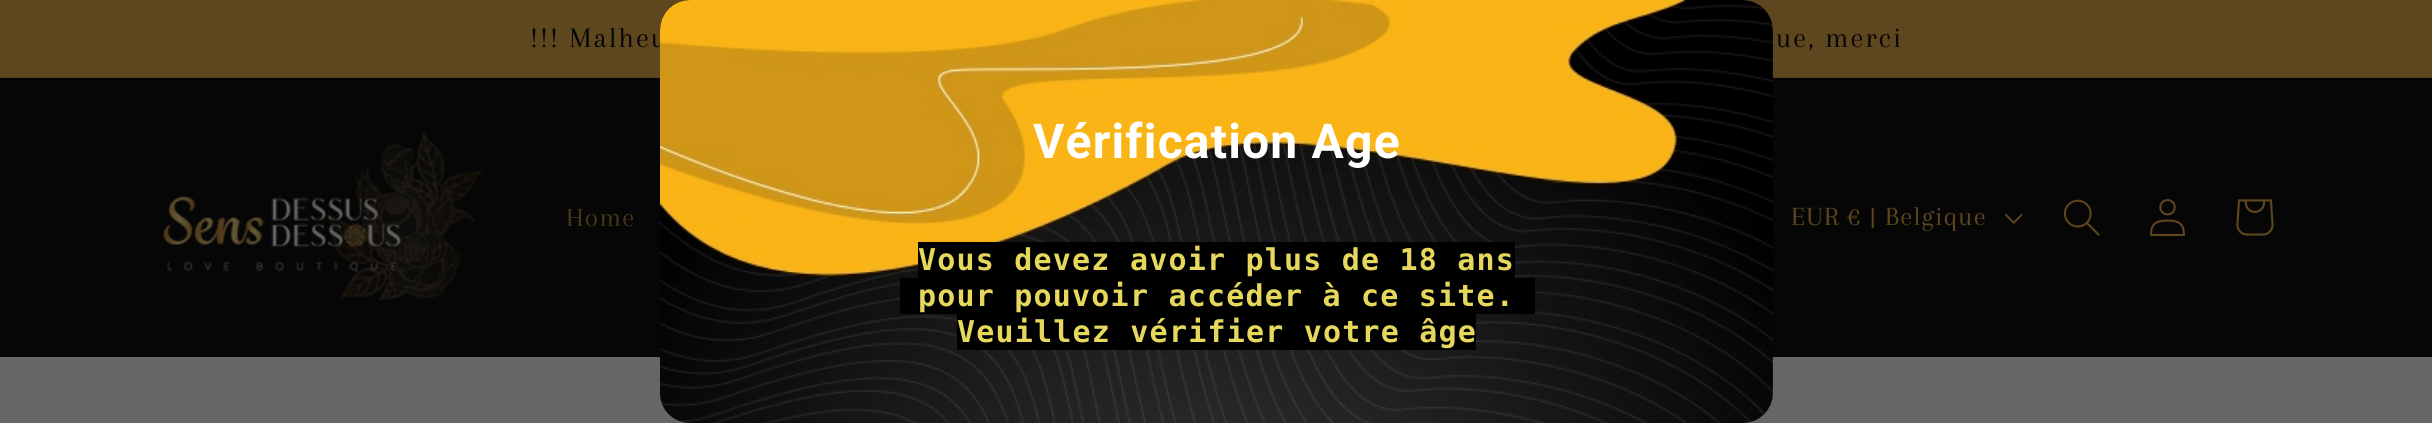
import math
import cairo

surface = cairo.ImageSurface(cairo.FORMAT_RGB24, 2432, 423)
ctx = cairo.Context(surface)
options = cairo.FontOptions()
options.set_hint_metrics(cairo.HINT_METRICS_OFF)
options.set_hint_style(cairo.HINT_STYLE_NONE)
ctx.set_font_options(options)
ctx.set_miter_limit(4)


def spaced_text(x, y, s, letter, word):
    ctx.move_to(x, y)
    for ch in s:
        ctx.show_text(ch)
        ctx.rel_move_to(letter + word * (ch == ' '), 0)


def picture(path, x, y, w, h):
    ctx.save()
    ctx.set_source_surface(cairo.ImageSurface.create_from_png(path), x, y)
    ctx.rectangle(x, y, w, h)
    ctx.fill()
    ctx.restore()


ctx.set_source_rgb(0.4, 0.4, 0.4)
ctx.paint()
ctx.set_source_rgb(0.369, 0.275, 0.118)
ctx.rectangle(0, 0, 2432, 77)
ctx.fill()
ctx.set_source_rgb(0.341, 0.255, 0.11)
ctx.rectangle(0, 77, 2432, 1)
ctx.fill()
ctx.select_font_face("Arapey")
ctx.set_font_size(29.25)
ctx.set_source_rgb(0.027, 0.027, 0.027)
spaced_text(530, 47, "!!! Malheu", 2, 0)
spaced_text(1776, 47, "ue, merci", 2, 0)
ctx.rectangle(0, 78, 2432, 279)
ctx.fill()
picture("img1.png", 660, 0, 1113, 423)
ctx.select_font_face("Roboto", cairo.FONT_SLANT_NORMAL, cairo.FONT_WEIGHT_BOLD)
ctx.set_font_size(48)
ctx.set_source_rgb(1, 1, 1)
spaced_text(1033, 158, "Vérification Age", 1.2, 0)
ctx.set_source_rgb(0, 0, 0)
ctx.rectangle(918, 242, 597, 36)
ctx.fill()
ctx.select_font_face("DejaVu Sans Mono", cairo.FONT_SLANT_NORMAL, cairo.FONT_WEIGHT_BOLD)
ctx.set_font_size(30)
ctx.set_source_rgb(0.898, 0.847, 0.361)
spaced_text(918, 270, "Vous devez avoir plus de 18 ans", 1.2, 0)
ctx.set_source_rgb(0, 0, 0)
ctx.rectangle(900, 278, 635, 36)
ctx.fill()
ctx.set_source_rgb(0.898, 0.847, 0.361)
spaced_text(918, 306, "pour pouvoir accéder à ce site.", 1.2, 0)
ctx.set_source_rgb(0, 0, 0)
ctx.rectangle(957, 314, 519, 36)
ctx.fill()
ctx.set_source_rgb(0.898, 0.847, 0.361)
spaced_text(957, 342, "Veuillez vérifier votre âge", 1.2, 0)
picture("img2.png", 163, 133, 320, 168)
ctx.select_font_face("Arapey")
ctx.set_font_size(27.25)
ctx.set_source_rgb(0.282, 0.212, 0.094)
spaced_text(566, 226, "Home", 1.2, 0)
ctx.set_source_rgb(0.369, 0.275, 0.118)
spaced_text(1791, 225, "EUR € | Belgique", 1.2, 0)
picture("img3.png", 2005, 214, 18, 10)
picture("img4.png", 2063, 199, 37, 37)
picture("img5.png", 2150, 199, 35, 37)
picture("img6.png", 2236, 199, 38, 37)
surface.write_to_png("page.png")
